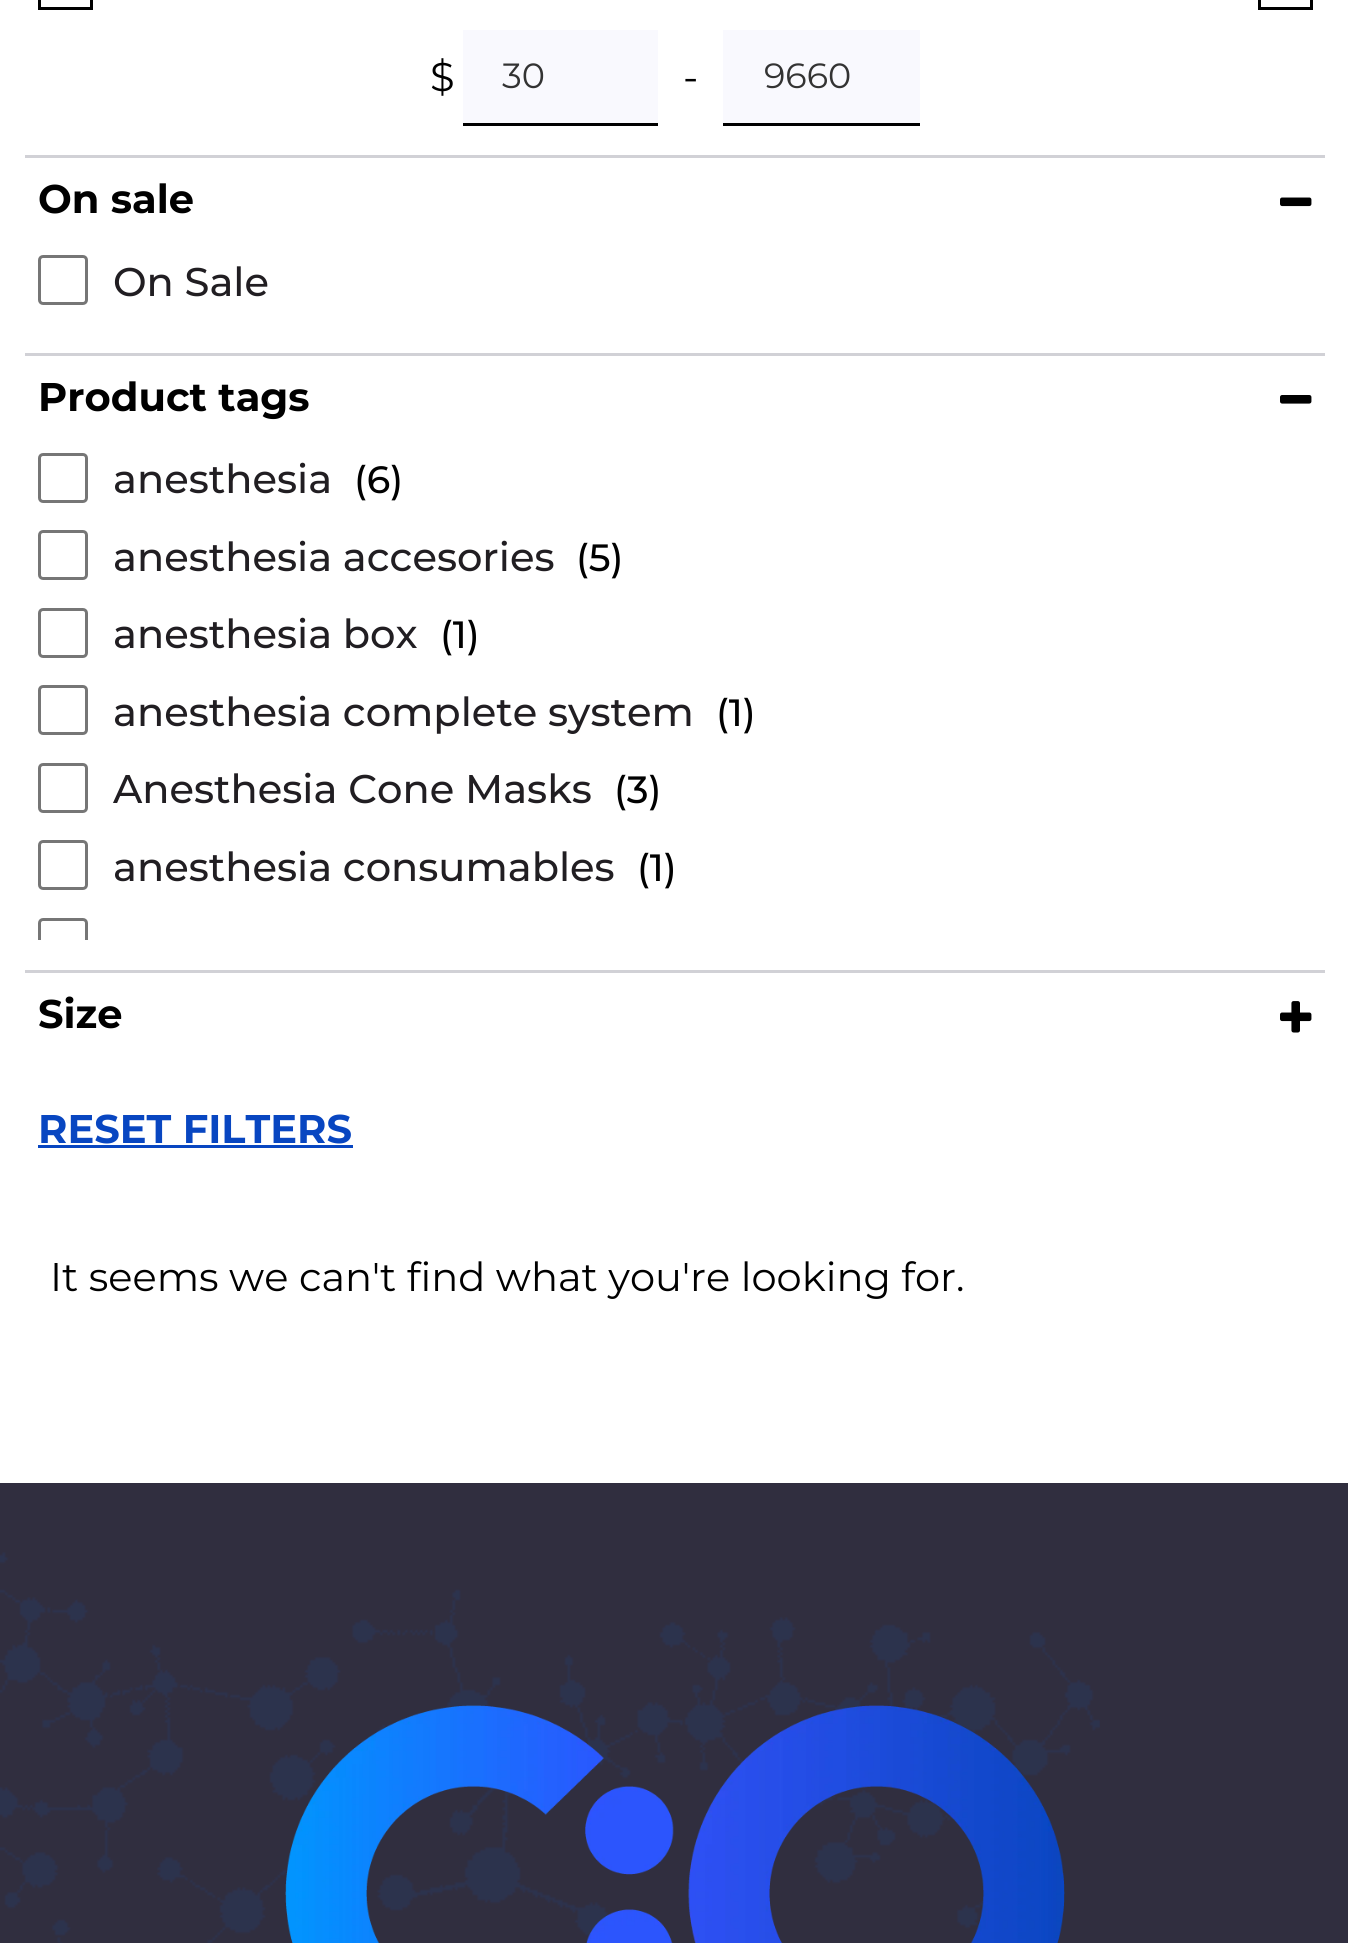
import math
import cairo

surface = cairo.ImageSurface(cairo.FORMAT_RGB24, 1348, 1943)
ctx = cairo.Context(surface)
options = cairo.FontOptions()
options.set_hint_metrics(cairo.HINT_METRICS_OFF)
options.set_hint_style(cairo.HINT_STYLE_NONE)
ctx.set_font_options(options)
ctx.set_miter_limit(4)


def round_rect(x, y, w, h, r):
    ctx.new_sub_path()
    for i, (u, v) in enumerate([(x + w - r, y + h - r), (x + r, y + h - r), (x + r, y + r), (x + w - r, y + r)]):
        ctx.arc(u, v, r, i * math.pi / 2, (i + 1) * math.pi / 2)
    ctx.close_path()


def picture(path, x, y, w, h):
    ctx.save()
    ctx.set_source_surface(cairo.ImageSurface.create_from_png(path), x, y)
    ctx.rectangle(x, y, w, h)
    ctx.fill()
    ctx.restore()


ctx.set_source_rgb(1, 1, 1)
ctx.paint()
ctx.rectangle(39.5, -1.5, 52, 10)
ctx.set_source_rgb(0, 0, 0)
ctx.set_line_width(3)
ctx.stroke()
ctx.rectangle(1259.5, -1.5, 52, 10)
ctx.stroke()
ctx.select_font_face("Montserrat")
ctx.set_font_size(40)
ctx.move_to(430, 91)
ctx.show_text("$")
ctx.set_source_rgb(0.973, 0.973, 0.996)
ctx.rectangle(463, 30, 195, 93)
ctx.fill()
ctx.set_source_rgb(0, 0, 0)
ctx.rectangle(463, 123, 195, 3)
ctx.fill()
ctx.set_font_size(35)
ctx.set_source_rgb(0.2, 0.2, 0.2)
ctx.move_to(502, 88)
ctx.show_text("30")
ctx.set_font_size(40)
ctx.set_source_rgb(0, 0, 0)
ctx.move_to(683, 91)
ctx.show_text("-")
ctx.set_source_rgb(0.973, 0.973, 0.996)
ctx.rectangle(723, 30, 197, 93)
ctx.fill()
ctx.set_source_rgb(0, 0, 0)
ctx.rectangle(723, 123, 197, 3)
ctx.fill()
ctx.set_font_size(35)
ctx.set_source_rgb(0.2, 0.2, 0.2)
ctx.move_to(764, 88)
ctx.show_text("9660")
ctx.set_source_rgb(0.82, 0.82, 0.839)
ctx.rectangle(25, 155, 1300, 3)
ctx.fill()
ctx.select_font_face("Montserrat", cairo.FONT_SLANT_NORMAL, cairo.FONT_WEIGHT_BOLD)
ctx.set_font_size(40)
ctx.set_source_rgb(0, 0, 0)
ctx.move_to(38, 213)
ctx.show_text("On sale")
picture("img1.png", 1280, 197, 32, 10)
round_rect(39.5, 256.5, 47, 47, 3.5)
ctx.set_source_rgb(0.463, 0.463, 0.463)
ctx.stroke()
ctx.select_font_face("Montserrat Medium")
ctx.set_source_rgb(0.129, 0.118, 0.133)
ctx.move_to(113, 296)
ctx.show_text("On Sale")
ctx.set_source_rgb(0.82, 0.82, 0.839)
ctx.rectangle(25, 353, 1300, 3)
ctx.fill()
ctx.select_font_face("Montserrat", cairo.FONT_SLANT_NORMAL, cairo.FONT_WEIGHT_BOLD)
ctx.set_source_rgb(0, 0, 0)
ctx.move_to(38, 411)
ctx.show_text("Product tags")
picture("img2.png", 1280, 395, 32, 9)
round_rect(39.5, 454.5, 47, 47, 3.5)
ctx.set_source_rgb(0.463, 0.463, 0.463)
ctx.stroke()
ctx.select_font_face("Montserrat Medium")
ctx.set_source_rgb(0.129, 0.118, 0.133)
ctx.move_to(113, 493)
ctx.show_text("anesthesia")
ctx.set_font_size(38)
ctx.set_source_rgb(0, 0, 0)
ctx.move_to(354, 493)
ctx.show_text("(6)")
round_rect(39.5, 531.5, 47, 47, 3.5)
ctx.set_source_rgb(0.463, 0.463, 0.463)
ctx.stroke()
ctx.set_font_size(40)
ctx.set_source_rgb(0.129, 0.118, 0.133)
ctx.move_to(113, 571)
ctx.show_text("anesthesia accesories")
ctx.set_font_size(38)
ctx.set_source_rgb(0, 0, 0)
ctx.move_to(576, 571)
ctx.show_text("(5)")
round_rect(39.5, 609.5, 47, 47, 3.5)
ctx.set_source_rgb(0.463, 0.463, 0.463)
ctx.stroke()
ctx.set_font_size(40)
ctx.set_source_rgb(0.129, 0.118, 0.133)
ctx.move_to(113, 648)
ctx.show_text("anesthesia box")
ctx.set_font_size(38)
ctx.set_source_rgb(0, 0, 0)
ctx.move_to(440, 648)
ctx.show_text("(1)")
round_rect(39.5, 686.5, 47, 47, 3.5)
ctx.set_source_rgb(0.463, 0.463, 0.463)
ctx.stroke()
ctx.set_font_size(40)
ctx.set_source_rgb(0.129, 0.118, 0.133)
ctx.move_to(113, 726)
ctx.show_text("anesthesia complete system")
ctx.set_font_size(38)
ctx.set_source_rgb(0, 0, 0)
ctx.move_to(716, 726)
ctx.show_text("(1)")
round_rect(39.5, 764.5, 47, 47, 3.5)
ctx.set_source_rgb(0.463, 0.463, 0.463)
ctx.stroke()
ctx.set_font_size(40)
ctx.set_source_rgb(0.129, 0.118, 0.133)
ctx.move_to(113, 803)
ctx.show_text("Anesthesia Cone Masks")
ctx.set_font_size(38)
ctx.set_source_rgb(0, 0, 0)
ctx.move_to(614, 803)
ctx.show_text("(3)")
round_rect(39.5, 841.5, 47, 47, 3.5)
ctx.set_source_rgb(0.463, 0.463, 0.463)
ctx.stroke()
ctx.set_font_size(40)
ctx.set_source_rgb(0.129, 0.118, 0.133)
ctx.move_to(113, 881)
ctx.show_text("anesthesia consumables")
ctx.set_font_size(38)
ctx.set_source_rgb(0, 0, 0)
ctx.move_to(637, 881)
ctx.show_text("(1)")
ctx.save()
ctx.rectangle(38, 440, 1275, 500)
ctx.clip()
round_rect(39.5, 919.5, 47, 47, 3.5)
ctx.set_source_rgb(0.463, 0.463, 0.463)
ctx.stroke()
ctx.restore()
ctx.set_source_rgb(0.82, 0.82, 0.839)
ctx.rectangle(25, 970, 1300, 3)
ctx.fill()
ctx.select_font_face("Montserrat", cairo.FONT_SLANT_NORMAL, cairo.FONT_WEIGHT_BOLD)
ctx.set_font_size(40)
ctx.set_source_rgb(0, 0, 0)
ctx.move_to(38, 1028)
ctx.show_text("Size")
picture("img3.png", 1280, 1001, 32, 32)
ctx.set_source_rgb(0.035, 0.275, 0.757)
ctx.move_to(38, 1143)
ctx.show_text("RESET FILTERS")
ctx.rectangle(38, 1145, 315, 3)
ctx.fill()
ctx.select_font_face("Montserrat")
ctx.set_source_rgb(0, 0, 0)
ctx.move_to(50, 1291)
ctx.show_text("It seems we can't find what you're looking for.")
ctx.set_source_rgb(0.188, 0.18, 0.247)
ctx.rectangle(0, 1483, 1348, 460)
ctx.fill()
picture("img4.png", 0, 1552, 1100, 391)
picture("img5.png", 285, 1705, 780, 238)
surface.write_to_png("page.png")
